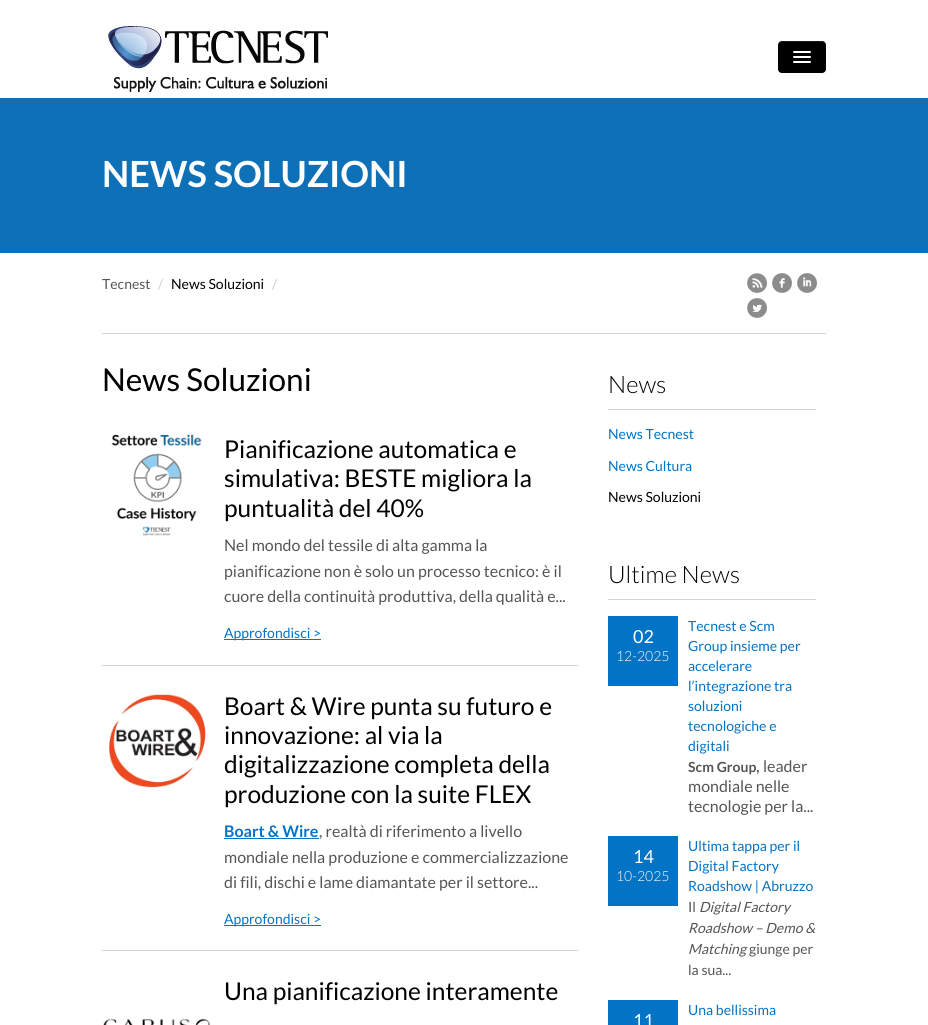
import math
import cairo

surface = cairo.ImageSurface(cairo.FORMAT_RGB24, 928, 1025)
ctx = cairo.Context(surface)
options = cairo.FontOptions()
options.set_hint_metrics(cairo.HINT_METRICS_OFF)
options.set_hint_style(cairo.HINT_STYLE_NONE)
ctx.set_font_options(options)
ctx.set_miter_limit(4)


def round_rect(x, y, w, h, r):
    ctx.new_sub_path()
    for i, (u, v) in enumerate([(x + w - r, y + h - r), (x + r, y + h - r), (x + r, y + r), (x + w - r, y + r)]):
        ctx.arc(u, v, r, i * math.pi / 2, (i + 1) * math.pi / 2)
    ctx.close_path()


def picture(path, x, y, w, h):
    ctx.save()
    ctx.set_source_surface(cairo.ImageSurface.create_from_png(path), x, y)
    ctx.rectangle(x, y, w, h)
    ctx.fill()
    ctx.restore()


ctx.set_source_rgb(1, 1, 1)
ctx.paint()
picture("img1.png", 108, 26, 220, 66)
ctx.set_source_rgb(0, 0, 0)
round_rect(778, 41, 48, 32, 4)
ctx.fill()
ctx.set_source_rgba(1, 1, 1, 0.1)
ctx.new_path()
ctx.move_to(782, 42)
ctx.line_to(822, 42)
ctx.curve_to(824, 42, 826, 44, 826, 46)
ctx.curve_to(826, 40, 820, 41, 815, 41)
ctx.line_to(789, 41)
ctx.curve_to(784, 41, 778, 40, 778, 46)
ctx.curve_to(778, 44, 780, 42, 782, 42)
ctx.close_path()
ctx.fill()
ctx.set_source_rgb(1, 1, 1)
round_rect(793, 51, 18, 2, 1)
ctx.fill()
round_rect(793, 56, 18, 2, 1)
ctx.fill()
round_rect(793, 61, 18, 2, 1)
ctx.fill()
ctx.set_source_rgb(0.055, 0.443, 0.722)
ctx.rectangle(0, 98, 928, 155)
ctx.fill()
ctx.select_font_face("Lato", cairo.FONT_SLANT_NORMAL, cairo.FONT_WEIGHT_BOLD)
ctx.set_font_size(36)
ctx.set_source_rgb(1, 1, 1)
ctx.move_to(102, 187)
ctx.show_text("NEWS SOLUZIONI")
ctx.set_source_rgb(0.831, 0.831, 0.831)
ctx.rectangle(102, 333, 724, 1)
ctx.fill()
ctx.select_font_face("Lato")
ctx.set_font_size(14)
ctx.set_source_rgb(0.333, 0.333, 0.333)
ctx.move_to(102, 289)
ctx.show_text("Tecnest")
ctx.set_source_rgb(0.8, 0.8, 0.8)
ctx.move_to(158, 289)
ctx.show_text("/")
ctx.set_source_rgb(0, 0, 0)
ctx.move_to(171, 289)
ctx.show_text("News Soluzioni")
ctx.set_source_rgb(0.8, 0.8, 0.8)
ctx.move_to(272, 289)
ctx.show_text("/")
picture("img2.png", 747, 273, 20, 20)
picture("img3.png", 772, 273, 20, 20)
picture("img4.png", 797, 273, 20, 20)
picture("img5.png", 747, 298, 20, 20)
ctx.set_font_size(31.5)
ctx.set_source_rgb(0, 0, 0)
ctx.move_to(102, 391)
ctx.show_text("News Soluzioni")
ctx.set_source_rgb(0.831, 0.831, 0.831)
ctx.rectangle(102, 665, 476, 1)
ctx.fill()
picture("img6.png", 111, 434, 91, 102)
ctx.set_font_size(24.5)
ctx.set_source_rgb(0, 0, 0)
ctx.move_to(224, 458)
ctx.show_text("Pianificazione automatica e")
ctx.move_to(224, 487)
ctx.show_text("simulativa: BESTE migliora la")
ctx.move_to(224, 517)
ctx.show_text("puntualità del 40%")
ctx.set_font_size(16)
ctx.set_source_rgb(0.333, 0.333, 0.333)
ctx.move_to(224, 551)
ctx.show_text("Nel mondo del tessile di alta gamma la")
ctx.move_to(224, 577)
ctx.show_text("pianificazione non è solo un processo tecnico: è il")
ctx.move_to(224, 602)
ctx.show_text("cuore della continuità produttiva, della qualità e...")
ctx.set_source_rgb(0.012, 0.451, 0.773)
ctx.rectangle(224, 639, 97, 1)
ctx.fill()
ctx.set_font_size(14)
ctx.move_to(224, 638)
ctx.show_text("Approfondisci >")
ctx.set_source_rgb(0.831, 0.831, 0.831)
ctx.rectangle(102, 950, 476, 1)
ctx.fill()
picture("img7.png", 109, 694, 97, 94)
ctx.set_font_size(24.5)
ctx.set_source_rgb(0, 0, 0)
ctx.move_to(224, 715)
ctx.show_text("Boart & Wire punta su futuro e")
ctx.move_to(224, 744)
ctx.show_text("innovazione: al via la")
ctx.move_to(224, 773)
ctx.show_text("digitalizzazione completa della")
ctx.move_to(224, 803)
ctx.show_text("produzione con la suite FLEX")
ctx.select_font_face("Lato", cairo.FONT_SLANT_NORMAL, cairo.FONT_WEIGHT_BOLD)
ctx.set_font_size(16)
ctx.set_source_rgb(0.012, 0.451, 0.773)
ctx.move_to(224, 837)
ctx.show_text("Boart & Wire")
ctx.rectangle(224, 838, 95, 1)
ctx.fill()
ctx.select_font_face("Lato")
ctx.set_source_rgb(0.333, 0.333, 0.333)
ctx.move_to(319, 837)
ctx.show_text(", realtà di riferimento a livello")
ctx.move_to(224, 863)
ctx.show_text("mondiale nella produzione e commercializzazione")
ctx.move_to(224, 888)
ctx.show_text("di fili, dischi e lame diamantate per il settore...")
ctx.set_source_rgb(0.012, 0.451, 0.773)
ctx.rectangle(224, 925, 97, 1)
ctx.fill()
ctx.set_font_size(14)
ctx.move_to(224, 924)
ctx.show_text("Approfondisci >")
ctx.set_font_size(24.5)
ctx.set_source_rgb(0, 0, 0)
ctx.move_to(224, 1000)
ctx.show_text("Una pianificazione interamente")
picture("img8.png", 103, 1018, 108, 7)
ctx.set_source_rgb(0.831, 0.831, 0.831)
ctx.rectangle(608, 409, 208, 1)
ctx.fill()
ctx.select_font_face("Lato Light")
ctx.set_font_size(24)
ctx.set_source_rgb(0, 0, 0)
ctx.move_to(608, 393)
ctx.show_text("News")
ctx.select_font_face("Lato")
ctx.set_font_size(14)
ctx.set_source_rgb(0.012, 0.451, 0.773)
ctx.move_to(608, 439)
ctx.show_text("News Tecnest")
ctx.move_to(608, 471)
ctx.show_text("News Cultura")
ctx.set_source_rgb(0, 0, 0)
ctx.move_to(608, 502)
ctx.show_text("News Soluzioni")
ctx.set_source_rgb(0.831, 0.831, 0.831)
ctx.rectangle(608, 599, 208, 1)
ctx.fill()
ctx.select_font_face("Lato Light")
ctx.set_font_size(24)
ctx.set_source_rgb(0, 0, 0)
ctx.move_to(608, 583)
ctx.show_text("Ultime News")
ctx.set_source_rgb(0.012, 0.451, 0.773)
ctx.rectangle(608, 616, 70, 70)
ctx.fill()
ctx.select_font_face("Lato")
ctx.set_font_size(18)
ctx.set_source_rgb(1, 1, 1)
ctx.move_to(633, 643)
ctx.show_text("02")
ctx.select_font_face("Lato Light")
ctx.set_font_size(14)
ctx.move_to(616, 661)
ctx.show_text("12-2025")
ctx.select_font_face("Lato")
ctx.set_source_rgb(0.012, 0.451, 0.773)
ctx.move_to(688, 631)
ctx.show_text("Tecnest e Scm")
ctx.move_to(688, 651)
ctx.show_text("Group insieme per")
ctx.move_to(688, 671)
ctx.show_text("accelerare")
ctx.move_to(688, 691)
ctx.show_text("l’integrazione tra")
ctx.move_to(688, 711)
ctx.show_text("soluzioni")
ctx.move_to(688, 731)
ctx.show_text("tecnologiche e")
ctx.move_to(688, 751)
ctx.show_text("digitali")
ctx.select_font_face("Lato", cairo.FONT_SLANT_NORMAL, cairo.FONT_WEIGHT_BOLD)
ctx.set_source_rgb(0.333, 0.333, 0.333)
ctx.move_to(688, 772)
ctx.show_text("Scm Group,")
ctx.select_font_face("Lato")
ctx.set_font_size(16)
ctx.move_to(763, 772)
ctx.show_text("leader")
ctx.move_to(688, 792)
ctx.show_text("mondiale nelle")
ctx.move_to(688, 812)
ctx.show_text("tecnologie per la...")
ctx.set_source_rgb(0.012, 0.451, 0.773)
ctx.rectangle(608, 836, 70, 70)
ctx.fill()
ctx.set_font_size(18)
ctx.set_source_rgb(1, 1, 1)
ctx.move_to(633, 863)
ctx.show_text("14")
ctx.select_font_face("Lato Light")
ctx.set_font_size(14)
ctx.move_to(616, 881)
ctx.show_text("10-2025")
ctx.select_font_face("Lato")
ctx.set_source_rgb(0.012, 0.451, 0.773)
ctx.move_to(688, 851)
ctx.show_text("Ultima tappa per il")
ctx.move_to(688, 871)
ctx.show_text("Digital Factory")
ctx.move_to(688, 891)
ctx.show_text("Roadshow | Abruzzo")
ctx.set_source_rgb(0.333, 0.333, 0.333)
ctx.move_to(688, 912)
ctx.show_text("Il")
ctx.select_font_face("Lato", cairo.FONT_SLANT_ITALIC)
ctx.move_to(699, 912)
ctx.show_text("Digital Factory")
ctx.move_to(688, 933)
ctx.show_text("Roadshow – Demo &")
ctx.move_to(688, 954)
ctx.show_text("Matching")
ctx.select_font_face("Lato")
ctx.move_to(749, 954)
ctx.show_text("giunge per")
ctx.move_to(688, 975)
ctx.show_text("la sua...")
ctx.set_source_rgb(0.012, 0.451, 0.773)
ctx.move_to(688, 1015)
ctx.show_text("Una bellissima")
ctx.rectangle(608, 1000, 70, 25)
ctx.fill()
ctx.set_font_size(18)
ctx.set_source_rgb(1, 1, 1)
ctx.move_to(633, 1027)
ctx.show_text("11")
surface.write_to_png("page.png")
